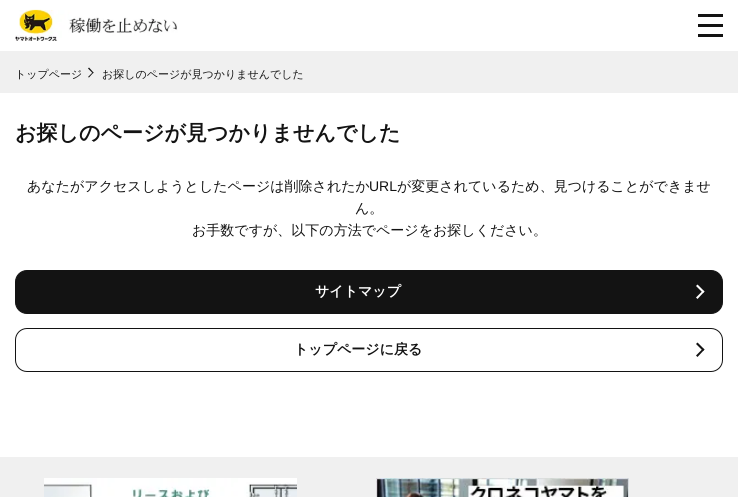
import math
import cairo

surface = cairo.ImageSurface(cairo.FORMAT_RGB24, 738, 497)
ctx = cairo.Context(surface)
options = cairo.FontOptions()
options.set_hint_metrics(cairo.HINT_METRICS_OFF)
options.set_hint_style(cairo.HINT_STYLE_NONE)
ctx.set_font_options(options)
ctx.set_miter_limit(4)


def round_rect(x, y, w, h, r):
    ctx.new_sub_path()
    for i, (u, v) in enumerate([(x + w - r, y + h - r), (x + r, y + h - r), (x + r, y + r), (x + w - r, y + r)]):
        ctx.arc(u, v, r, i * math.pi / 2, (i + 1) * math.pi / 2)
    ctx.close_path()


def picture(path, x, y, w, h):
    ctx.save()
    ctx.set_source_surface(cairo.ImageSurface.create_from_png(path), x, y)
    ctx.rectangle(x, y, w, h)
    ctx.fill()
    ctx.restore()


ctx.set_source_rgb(1, 1, 1)
ctx.paint()
picture("img1.png", 15, 9, 163, 32)
ctx.set_source_rgb(0.078, 0.078, 0.078)
ctx.rectangle(698, 14, 25, 3)
ctx.fill()
ctx.rectangle(698, 24, 25, 3)
ctx.fill()
ctx.rectangle(698, 34, 25, 3)
ctx.fill()
ctx.set_source_rgb(0.941, 0.941, 0.941)
ctx.rectangle(0, 51, 738, 42)
ctx.fill()
ctx.select_font_face("WenQuanYi Zen Hei Medium")
ctx.set_font_size(11)
ctx.set_source_rgb(0.078, 0.078, 0.078)
ctx.move_to(15, 78)
ctx.show_text("トップページ")
ctx.new_path()
ctx.move_to(89, 67.5)
ctx.line_to(93.5, 72.5)
ctx.line_to(93, 73.5)
ctx.line_to(88, 68.5)
ctx.close_path()
ctx.fill()
ctx.new_path()
ctx.move_to(93, 72)
ctx.line_to(93.5, 72.5)
ctx.line_to(89, 77.5)
ctx.line_to(88, 77)
ctx.close_path()
ctx.fill()
ctx.move_to(102, 78)
ctx.show_text("お探しのページが見つかりませんでした")
ctx.select_font_face("WenQuanYi Zen Hei", cairo.FONT_SLANT_NORMAL, cairo.FONT_WEIGHT_BOLD)
ctx.set_font_size(21)
ctx.move_to(15, 140)
ctx.show_text("お探しのページが見つかりませんでした")
ctx.select_font_face("WenQuanYi Zen Hei Medium")
ctx.set_font_size(14)
ctx.move_to(27, 191)
ctx.show_text("あなたがアクセスしようとしたページは削除されたか")
ctx.select_font_face("Liberation Sans")
ctx.move_to(369, 191)
ctx.show_text("URL")
ctx.select_font_face("WenQuanYi Zen Hei Medium")
ctx.move_to(397, 191)
ctx.show_text("が変更されているため、見つけることができませ")
ctx.move_to(355, 213)
ctx.show_text("ん。")
ctx.move_to(192, 235)
ctx.show_text("お手数ですが、以下の方法でページをお探しください。")
round_rect(15.5, 270.5, 707, 43, 11.5)
ctx.fill_preserve()
ctx.set_line_width(1)
ctx.stroke()
ctx.select_font_face("WenQuanYi Zen Hei", cairo.FONT_SLANT_NORMAL, cairo.FONT_WEIGHT_BOLD)
ctx.set_source_rgb(1, 1, 1)
ctx.move_to(315, 296)
ctx.show_text("サイトマップ")
ctx.new_path()
ctx.move_to(697.5, 284.5)
ctx.line_to(704.5, 291.5)
ctx.line_to(703, 293)
ctx.line_to(696, 286)
ctx.close_path()
ctx.fill()
ctx.new_path()
ctx.move_to(703, 290.5)
ctx.line_to(704.5, 291.5)
ctx.line_to(697.5, 299)
ctx.line_to(696, 297.5)
ctx.close_path()
ctx.fill()
round_rect(15.5, 328.5, 707, 43, 11.5)
ctx.set_source_rgb(0.078, 0.078, 0.078)
ctx.stroke()
ctx.move_to(294, 354)
ctx.show_text("トップページに戻る")
ctx.new_path()
ctx.move_to(697.5, 342.5)
ctx.line_to(704.5, 349.5)
ctx.line_to(703, 351)
ctx.line_to(696, 344)
ctx.close_path()
ctx.fill()
ctx.new_path()
ctx.move_to(703, 348.5)
ctx.line_to(704.5, 349.5)
ctx.line_to(697.5, 357)
ctx.line_to(696, 355.5)
ctx.close_path()
ctx.fill()
ctx.set_source_rgb(0.941, 0.941, 0.941)
ctx.rectangle(0, 457, 738, 40)
ctx.fill()
picture("img2.png", 44, 478, 253, 19)
picture("img3.png", 376, 478, 253, 19)
surface.write_to_png("page.png")
